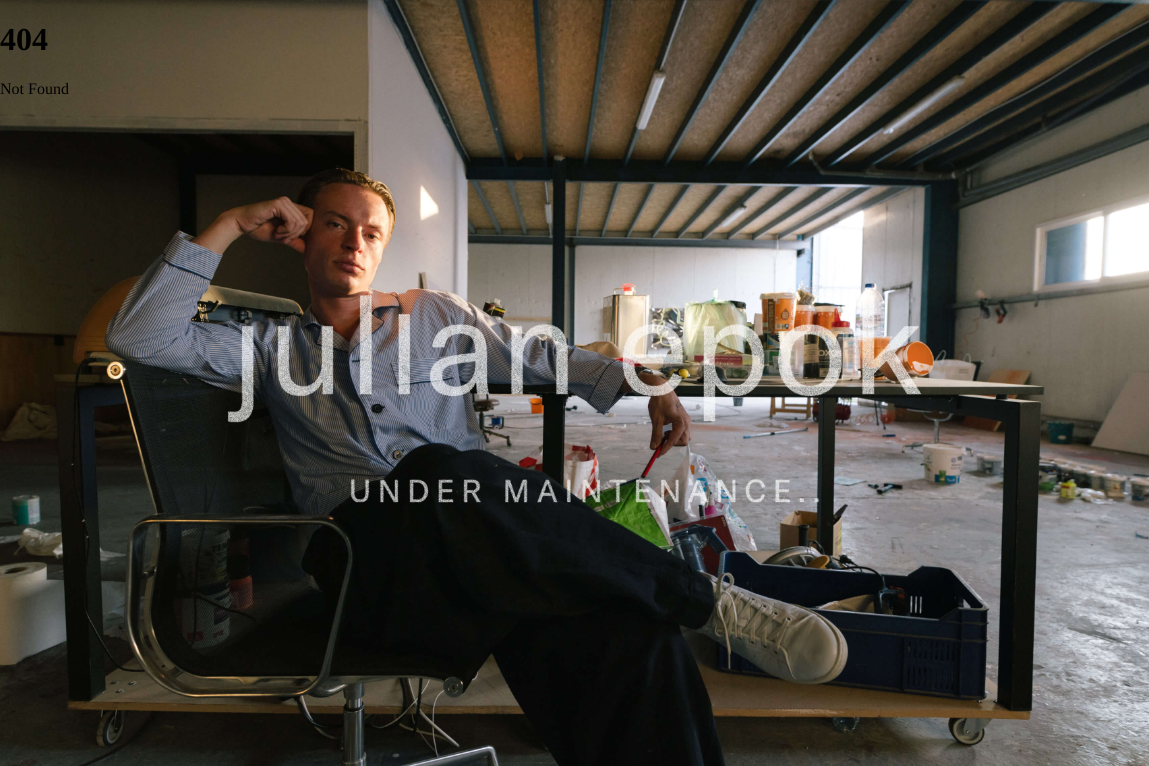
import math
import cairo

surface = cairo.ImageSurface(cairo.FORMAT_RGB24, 1149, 766)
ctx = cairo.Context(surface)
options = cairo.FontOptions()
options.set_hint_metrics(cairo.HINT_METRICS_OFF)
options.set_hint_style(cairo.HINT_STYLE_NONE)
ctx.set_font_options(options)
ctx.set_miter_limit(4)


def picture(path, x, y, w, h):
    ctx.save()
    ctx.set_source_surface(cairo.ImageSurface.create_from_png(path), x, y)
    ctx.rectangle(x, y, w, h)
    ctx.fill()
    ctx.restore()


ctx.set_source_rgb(1, 1, 1)
ctx.paint()
picture("img1.png", 0, 0, 1149, 766)
ctx.select_font_face("Liberation Serif", cairo.FONT_SLANT_NORMAL, cairo.FONT_WEIGHT_BOLD)
ctx.set_font_size(32)
ctx.set_source_rgb(0, 0, 0)
ctx.move_to(0, 50)
ctx.show_text("404")
ctx.select_font_face("Liberation Serif")
ctx.set_font_size(16)
ctx.move_to(0, 94)
ctx.show_text("Not Found")
surface.write_to_png("page.png")
